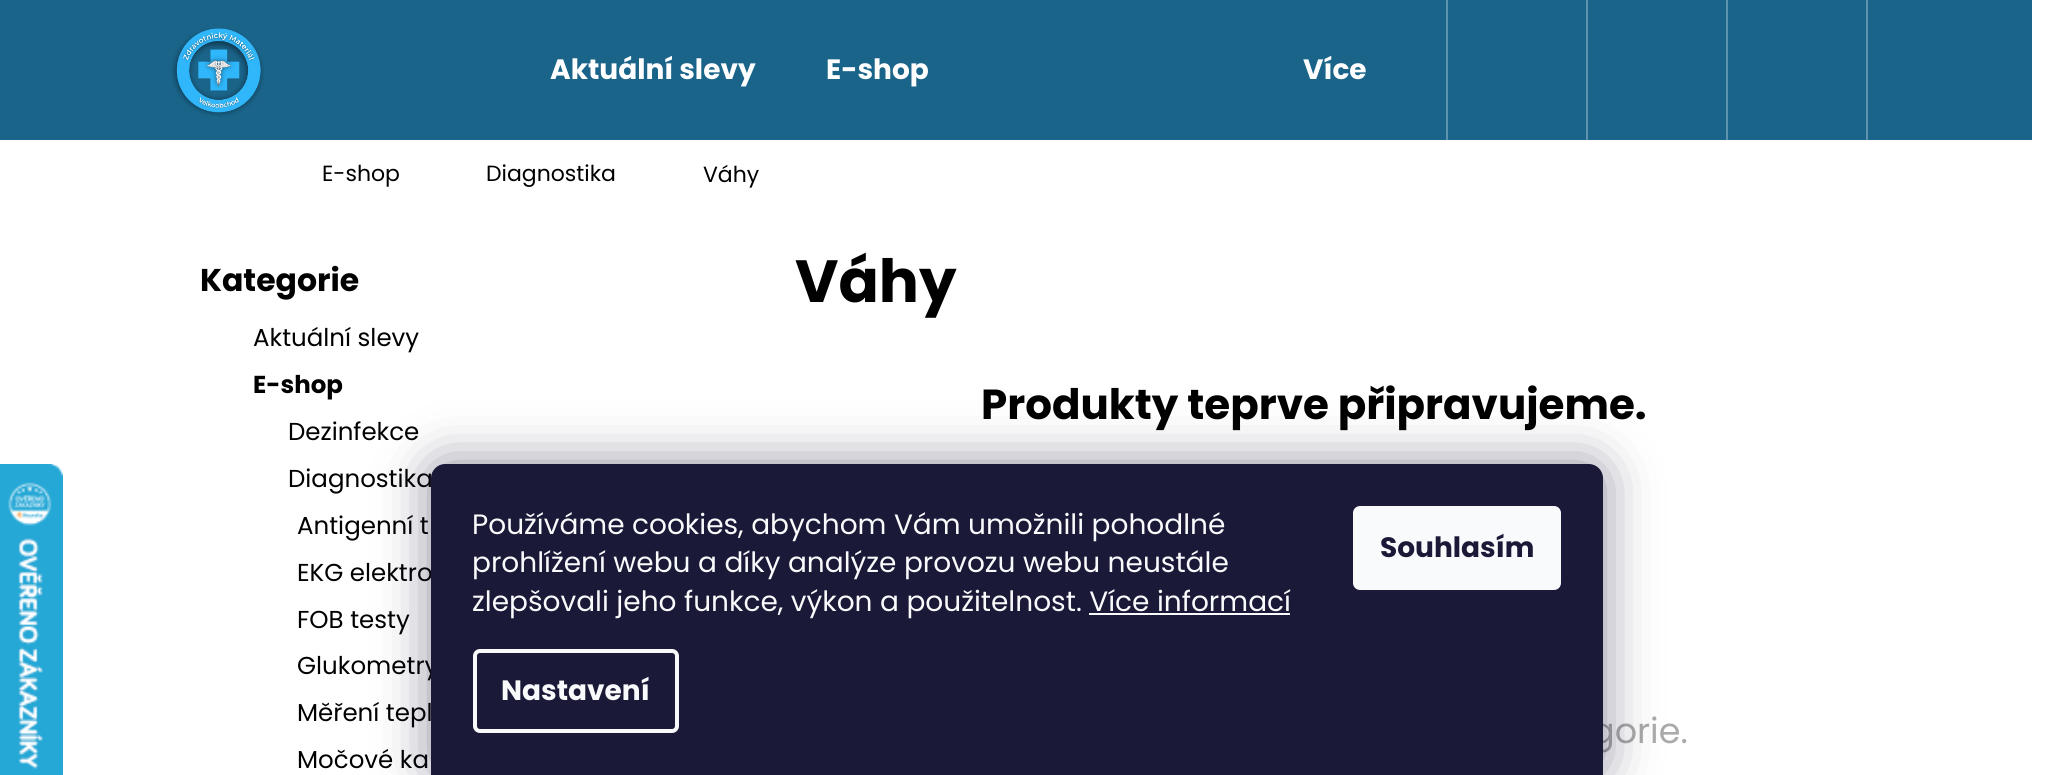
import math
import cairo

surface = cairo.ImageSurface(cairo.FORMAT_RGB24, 2058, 775)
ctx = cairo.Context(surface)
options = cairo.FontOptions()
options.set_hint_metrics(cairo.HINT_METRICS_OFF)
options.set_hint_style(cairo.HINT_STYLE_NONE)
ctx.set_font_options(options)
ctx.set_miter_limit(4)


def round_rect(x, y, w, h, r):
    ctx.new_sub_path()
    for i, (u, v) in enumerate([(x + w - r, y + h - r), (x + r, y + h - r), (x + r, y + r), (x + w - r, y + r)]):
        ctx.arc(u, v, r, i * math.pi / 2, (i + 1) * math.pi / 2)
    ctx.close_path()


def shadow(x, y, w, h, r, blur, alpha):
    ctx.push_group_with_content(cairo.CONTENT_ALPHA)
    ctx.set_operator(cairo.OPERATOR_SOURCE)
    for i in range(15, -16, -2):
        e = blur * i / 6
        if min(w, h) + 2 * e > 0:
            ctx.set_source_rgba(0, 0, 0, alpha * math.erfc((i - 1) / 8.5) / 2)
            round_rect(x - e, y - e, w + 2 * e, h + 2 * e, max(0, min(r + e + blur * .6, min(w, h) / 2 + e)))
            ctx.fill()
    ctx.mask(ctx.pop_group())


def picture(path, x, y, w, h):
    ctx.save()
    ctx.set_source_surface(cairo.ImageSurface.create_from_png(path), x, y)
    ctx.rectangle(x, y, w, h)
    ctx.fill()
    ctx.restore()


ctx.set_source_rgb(1, 1, 1)
ctx.paint()
picture("img1.png", 0, 464, 63, 311)
ctx.set_source_rgb(0.102, 0.392, 0.541)
ctx.rectangle(0, 0, 2032, 140)
ctx.fill()
picture("img2.png", 171, 27, 93, 90)
ctx.select_font_face("Poppins", cairo.FONT_SLANT_NORMAL, cairo.FONT_WEIGHT_BOLD)
ctx.set_font_size(28)
ctx.set_source_rgb(1, 1, 1)
ctx.move_to(550, 79)
ctx.show_text("Aktuální slevy")
ctx.move_to(826, 79)
ctx.show_text("E-shop")
ctx.move_to(1303, 79)
ctx.show_text("Více")
ctx.set_source_rgb(0.373, 0.576, 0.678)
ctx.rectangle(1866, 0, 2, 140)
ctx.fill()
ctx.rectangle(1446, 0, 2, 140)
ctx.fill()
ctx.rectangle(1586, 0, 2, 140)
ctx.fill()
ctx.rectangle(1726, 0, 2, 140)
ctx.fill()
ctx.select_font_face("Poppins")
ctx.set_font_size(22)
ctx.set_source_rgb(0, 0, 0)
ctx.move_to(322, 181)
ctx.show_text("E-shop")
ctx.move_to(486, 181)
ctx.show_text("Diagnostika")
ctx.move_to(703, 182)
ctx.show_text("Váhy")
ctx.select_font_face("Poppins", cairo.FONT_SLANT_NORMAL, cairo.FONT_WEIGHT_BOLD)
ctx.set_font_size(31.5)
ctx.move_to(200, 291)
ctx.show_text("Kategorie")
ctx.select_font_face("Poppins")
ctx.set_font_size(24.5)
ctx.move_to(253, 346)
ctx.show_text("Aktuální slevy")
ctx.select_font_face("Poppins", cairo.FONT_SLANT_NORMAL, cairo.FONT_WEIGHT_BOLD)
ctx.move_to(253, 393)
ctx.show_text("E-shop")
ctx.select_font_face("Poppins")
ctx.move_to(288, 440)
ctx.show_text("Dezinfekce")
ctx.move_to(288, 487)
ctx.show_text("Diagnostika")
ctx.move_to(297, 534)
ctx.show_text("Antigenní t")
ctx.move_to(297, 581)
ctx.show_text("EKG elektro")
ctx.move_to(297, 628)
ctx.show_text("FOB testy")
ctx.move_to(297, 674)
ctx.show_text("Glukometry")
ctx.move_to(297, 721)
ctx.show_text("Měření tepl")
ctx.move_to(297, 768)
ctx.show_text("Močové ka")
ctx.select_font_face("Poppins", cairo.FONT_SLANT_NORMAL, cairo.FONT_WEIGHT_BOLD)
ctx.set_font_size(59.5)
ctx.move_to(795, 302)
ctx.show_text("Váhy")
ctx.set_font_size(42)
ctx.move_to(981, 419)
ctx.show_text("Produkty teprve připravujeme.")
ctx.select_font_face("Poppins")
ctx.set_font_size(35)
ctx.set_source_rgb(0.667, 0.667, 0.667)
ctx.move_to(1591, 743)
ctx.show_text("gorie.")
ctx.set_source_rgb(0.106, 0.098, 0.224)
shadow(431, 464, 1172, 311, 14, 26, 0.5)
ctx.set_source_rgb(0.102, 0.098, 0.216)
ctx.new_path()
ctx.move_to(445, 464)
ctx.line_to(1589, 464)
ctx.curve_to(1596.5, 464, 1603, 470.5, 1603, 478)
ctx.line_to(1603, 775)
ctx.line_to(431, 775)
ctx.line_to(431, 478)
ctx.curve_to(431, 470.5, 437.5, 464, 445, 464)
ctx.close_path()
ctx.fill()
ctx.set_font_size(28)
ctx.set_source_rgb(0.973, 0.98, 0.984)
ctx.move_to(472, 534)
ctx.show_text("Používáme cookies, abychom Vám umožnili pohodlné")
ctx.move_to(472, 572)
ctx.show_text("prohlížení webu a díky analýze provozu webu neustále")
ctx.move_to(472, 611)
ctx.show_text("zlepšovali jeho funkce, výkon a použitelnost. Více informací")
ctx.rectangle(1089, 613, 201, 2)
ctx.fill()
round_rect(475, 651, 202, 80, 5)
ctx.set_line_width(4)
ctx.stroke()
ctx.select_font_face("Poppins", cairo.FONT_SLANT_NORMAL, cairo.FONT_WEIGHT_BOLD)
ctx.move_to(501, 700)
ctx.show_text("Nastavení")
round_rect(1353, 506, 208, 84, 7)
ctx.fill()
ctx.set_source_rgb(0.102, 0.098, 0.216)
ctx.move_to(1380, 557)
ctx.show_text("Souhlasím")
surface.write_to_png("page.png")
